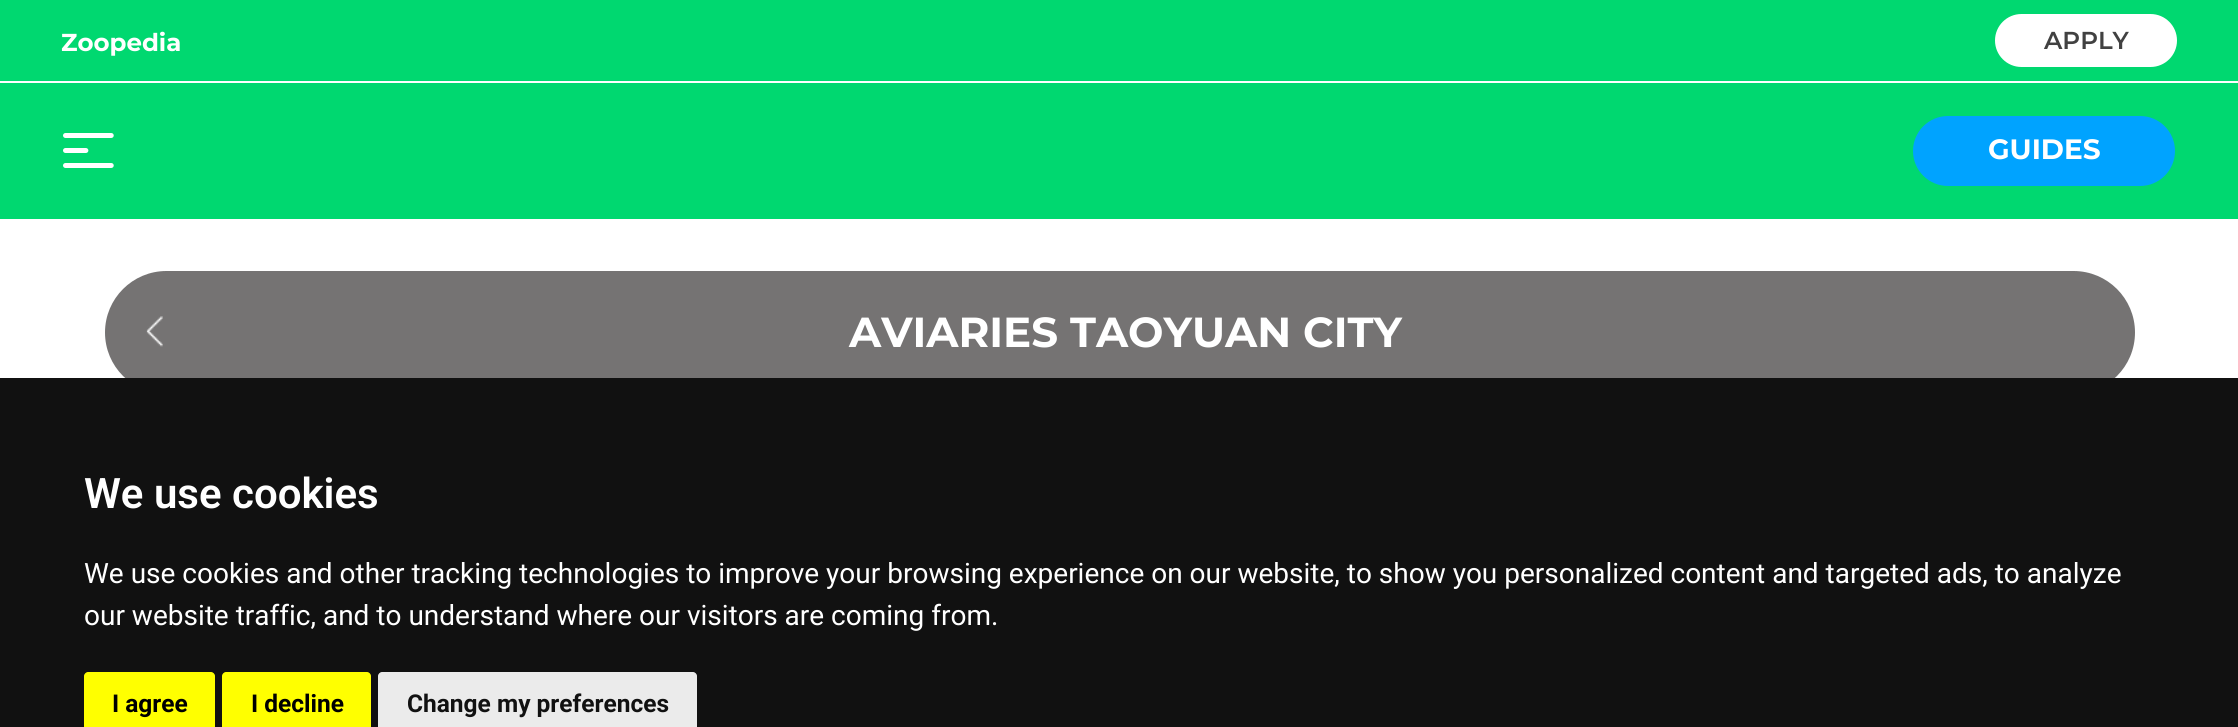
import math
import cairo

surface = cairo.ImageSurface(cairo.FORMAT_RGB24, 2238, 727)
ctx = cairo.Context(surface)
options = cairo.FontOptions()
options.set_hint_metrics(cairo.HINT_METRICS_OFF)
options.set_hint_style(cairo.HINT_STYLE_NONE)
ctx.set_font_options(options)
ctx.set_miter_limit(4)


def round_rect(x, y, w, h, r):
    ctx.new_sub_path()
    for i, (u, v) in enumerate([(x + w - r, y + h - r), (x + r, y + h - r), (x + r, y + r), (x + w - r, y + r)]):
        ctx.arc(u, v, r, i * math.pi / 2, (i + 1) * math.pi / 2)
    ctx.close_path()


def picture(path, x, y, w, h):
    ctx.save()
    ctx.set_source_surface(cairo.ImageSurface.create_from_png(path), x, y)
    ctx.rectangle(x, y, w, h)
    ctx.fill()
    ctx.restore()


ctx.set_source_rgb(1, 1, 1)
ctx.paint()
ctx.set_source_rgb(0, 0.847, 0.439)
ctx.rectangle(0, 0, 2238, 219)
ctx.fill()
ctx.set_source_rgb(1, 1, 1)
ctx.rectangle(0, 81, 2238, 2)
ctx.fill()
ctx.select_font_face("Montserrat", cairo.FONT_SLANT_NORMAL, cairo.FONT_WEIGHT_BOLD)
ctx.set_font_size(24.5)
ctx.move_to(61, 51)
ctx.show_text("Zoopedia")
round_rect(1996, 15, 180, 51, 25.5)
ctx.fill_preserve()
ctx.stroke()
ctx.select_font_face("Montserrat SemiBold")
ctx.set_source_rgb(0.255, 0.255, 0.255)
ctx.move_to(2044, 49)
ctx.show_text("APPLY")
picture("img1.png", 63, 133, 51, 35)
ctx.set_source_rgb(0, 0.639, 1)
round_rect(1913, 116, 262, 70, 35)
ctx.fill()
ctx.select_font_face("Montserrat", cairo.FONT_SLANT_NORMAL, cairo.FONT_WEIGHT_BOLD)
ctx.set_font_size(28)
ctx.set_source_rgb(1, 1, 1)
ctx.move_to(1988, 159)
ctx.show_text("GUIDES")
ctx.set_source_rgb(0.459, 0.451, 0.451)
round_rect(105, 271, 2030, 123, 61.5)
ctx.fill()
picture("img2.png", 146, 316, 17, 31)
ctx.set_font_size(42)
ctx.set_source_rgb(1, 1, 1)
ctx.move_to(849, 347)
ctx.show_text("AVIARIES TAOYUAN CITY")
ctx.set_source_rgb(0.067, 0.067, 0.067)
ctx.rectangle(0, 378, 2238, 349)
ctx.fill()
ctx.select_font_face("Roboto SemiBold")
ctx.set_source_rgb(1, 1, 1)
ctx.move_to(84, 508)
ctx.show_text("We use cookies")
ctx.select_font_face("Roboto")
ctx.set_font_size(28)
ctx.move_to(84, 583)
ctx.show_text("We use cookies and other tracking technologies to improve your browsing experience on our website, to show you personalized content and targeted ads, to analyze")
ctx.move_to(84, 625)
ctx.show_text("our website traffic, and to understand where our visitors are coming from.")
ctx.set_source_rgb(1, 1, 0)
ctx.new_path()
ctx.move_to(88, 672)
ctx.line_to(211, 672)
ctx.curve_to(213, 672, 215, 674, 215, 676)
ctx.line_to(215, 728)
ctx.line_to(84, 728)
ctx.line_to(84, 676)
ctx.curve_to(84, 674, 86, 672, 88, 672)
ctx.close_path()
ctx.fill()
ctx.select_font_face("Roboto", cairo.FONT_SLANT_NORMAL, cairo.FONT_WEIGHT_BOLD)
ctx.set_font_size(24.5)
ctx.set_source_rgb(0, 0, 0)
ctx.move_to(112, 712)
ctx.show_text("I agree")
ctx.set_source_rgb(1, 1, 0)
ctx.new_path()
ctx.move_to(226, 672)
ctx.line_to(367, 672)
ctx.curve_to(369, 672, 371, 674, 371, 676)
ctx.line_to(371, 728)
ctx.line_to(222, 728)
ctx.line_to(222, 676)
ctx.curve_to(222, 674, 224, 672, 226, 672)
ctx.close_path()
ctx.fill()
ctx.set_source_rgb(0, 0, 0)
ctx.move_to(251, 712)
ctx.show_text("I decline")
ctx.set_source_rgb(0.918, 0.918, 0.918)
ctx.new_path()
ctx.move_to(382, 672)
ctx.line_to(693, 672)
ctx.curve_to(695, 672, 697, 674, 697, 676)
ctx.line_to(697, 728)
ctx.line_to(378, 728)
ctx.line_to(378, 676)
ctx.curve_to(378, 674, 380, 672, 382, 672)
ctx.close_path()
ctx.fill()
ctx.set_source_rgb(0.067, 0.067, 0.067)
ctx.move_to(407, 712)
ctx.show_text("Change my preferences")
surface.write_to_png("page.png")
